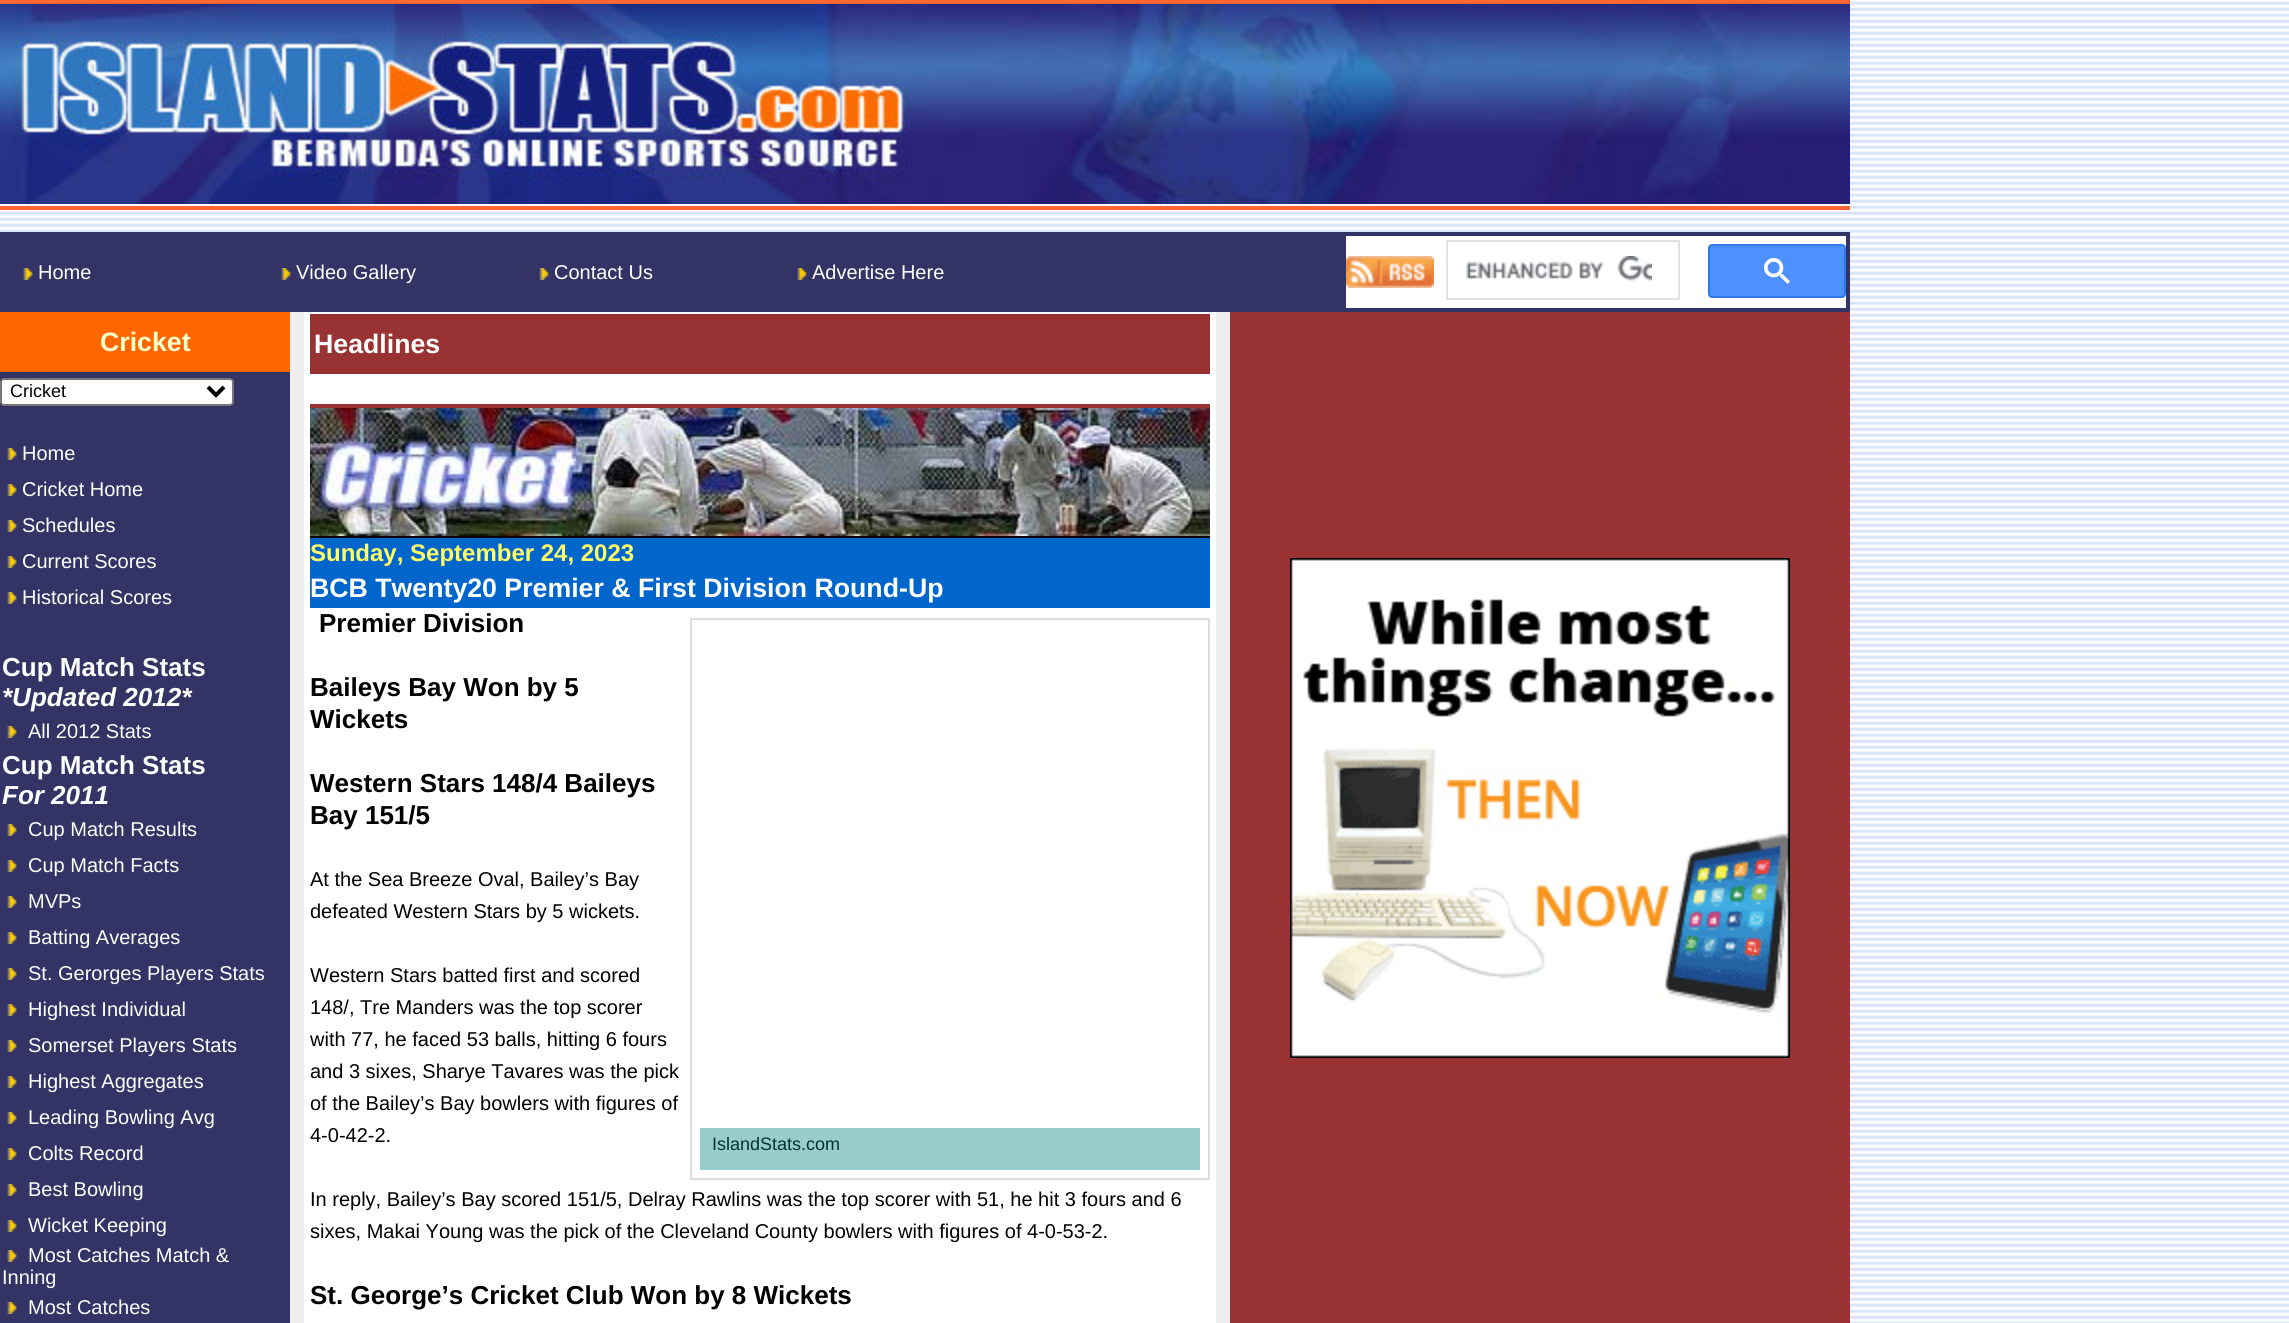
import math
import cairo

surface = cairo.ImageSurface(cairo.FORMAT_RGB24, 2289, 1323)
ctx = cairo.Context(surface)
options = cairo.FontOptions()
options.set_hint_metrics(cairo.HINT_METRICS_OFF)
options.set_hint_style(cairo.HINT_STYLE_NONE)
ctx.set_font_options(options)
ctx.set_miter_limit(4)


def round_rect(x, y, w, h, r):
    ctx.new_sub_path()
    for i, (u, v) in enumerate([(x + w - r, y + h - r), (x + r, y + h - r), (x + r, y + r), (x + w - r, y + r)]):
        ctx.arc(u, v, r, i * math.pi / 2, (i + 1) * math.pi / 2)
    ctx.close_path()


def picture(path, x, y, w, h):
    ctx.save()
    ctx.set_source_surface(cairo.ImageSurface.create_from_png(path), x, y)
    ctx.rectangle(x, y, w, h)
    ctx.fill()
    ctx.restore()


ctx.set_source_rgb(1, 1, 1)
ctx.paint()
picture("img1.png", 0, 1, 2289, 1322)
ctx.set_source_rgb(1, 0.4, 0.2)
ctx.rectangle(0, 0, 1850, 4)
ctx.fill()
picture("img2.png", 0, 4, 1850, 200)
ctx.rectangle(0, 206, 1850, 4)
ctx.fill()
ctx.set_source_rgb(0.2, 0.2, 0.4)
ctx.rectangle(0, 232, 1850, 80)
ctx.fill()
picture("img3.png", 23, 268, 10, 12)
ctx.select_font_face("Liberation Sans")
ctx.set_font_size(20)
ctx.set_source_rgb(1, 1, 1)
ctx.move_to(38, 279)
ctx.show_text("Home")
picture("img3.png", 281, 268, 10, 12)
ctx.move_to(296, 279)
ctx.show_text("Video Gallery")
picture("img3.png", 539, 268, 10, 12)
ctx.move_to(554, 279)
ctx.show_text("Contact Us")
picture("img3.png", 797, 268, 10, 12)
ctx.move_to(812, 279)
ctx.show_text("Advertise Here")
ctx.rectangle(1346, 236, 500, 72)
ctx.fill()
picture("img4.png", 1346, 256, 88, 32)
ctx.rectangle(1447, 241, 232, 58)
ctx.set_source_rgb(0.875, 0.882, 0.898)
ctx.stroke()
picture("img5.png", 1466, 256, 186, 25)
ctx.set_source_rgb(0.302, 0.565, 0.996)
round_rect(1709, 245, 136, 52, 3)
ctx.fill_preserve()
ctx.set_source_rgb(0.188, 0.475, 0.929)
ctx.stroke()
picture("img6.png", 1764, 258, 26, 26)
ctx.set_source_rgb(0.933, 0.933, 0.933)
ctx.rectangle(290, 312, 940, 1011)
ctx.fill()
ctx.set_source_rgb(0.2, 0.2, 0.4)
ctx.rectangle(0, 372, 290, 951)
ctx.fill()
ctx.set_source_rgb(1, 0.4, 0)
ctx.rectangle(0, 312, 290, 60)
ctx.fill()
ctx.select_font_face("Liberation Sans", cairo.FONT_SLANT_NORMAL, cairo.FONT_WEIGHT_BOLD)
ctx.set_font_size(26.7)
ctx.set_source_rgb(1, 1, 0.8)
ctx.move_to(100, 351)
ctx.show_text("Cricket")
ctx.set_source_rgb(1, 1, 1)
round_rect(1, 379, 232, 26, 3)
ctx.fill_preserve()
ctx.set_source_rgb(0.463, 0.463, 0.463)
ctx.stroke()
ctx.new_path()
ctx.move_to(208, 387)
ctx.line_to(216, 395)
ctx.line_to(224, 387)
ctx.set_source_rgb(0, 0, 0)
ctx.set_line_width(4)
ctx.stroke()
ctx.select_font_face("Liberation Sans")
ctx.set_font_size(18)
ctx.move_to(10, 397)
ctx.show_text("Cricket")
picture("img3.png", 7, 448, 10, 12)
ctx.set_font_size(20)
ctx.set_source_rgb(1, 1, 1)
ctx.move_to(22, 460)
ctx.show_text("Home")
picture("img3.png", 7, 484, 10, 12)
ctx.move_to(22, 496)
ctx.show_text("Cricket Home")
picture("img3.png", 7, 520, 10, 12)
ctx.move_to(22, 532)
ctx.show_text("Schedules")
picture("img3.png", 7, 556, 10, 12)
ctx.move_to(22, 568)
ctx.show_text("Current Scores")
picture("img3.png", 7, 592, 10, 12)
ctx.move_to(22, 604)
ctx.show_text("Historical Scores")
ctx.select_font_face("Liberation Sans", cairo.FONT_SLANT_NORMAL, cairo.FONT_WEIGHT_BOLD)
ctx.set_font_size(26)
ctx.move_to(2, 676)
ctx.show_text("Cup Match Stats")
ctx.select_font_face("Liberation Sans", cairo.FONT_SLANT_ITALIC, cairo.FONT_WEIGHT_BOLD)
ctx.move_to(2, 706)
ctx.show_text("*Updated 2012*")
picture("img3.png", 7, 726, 10, 12)
ctx.select_font_face("Liberation Sans")
ctx.set_font_size(20)
ctx.move_to(28, 738)
ctx.show_text("All 2012 Stats")
ctx.select_font_face("Liberation Sans", cairo.FONT_SLANT_NORMAL, cairo.FONT_WEIGHT_BOLD)
ctx.set_font_size(26)
ctx.move_to(2, 774)
ctx.show_text("Cup Match Stats")
ctx.select_font_face("Liberation Sans", cairo.FONT_SLANT_ITALIC, cairo.FONT_WEIGHT_BOLD)
ctx.move_to(2, 804)
ctx.show_text("For 2011")
picture("img3.png", 7, 824, 10, 12)
ctx.select_font_face("Liberation Sans")
ctx.set_font_size(20)
ctx.move_to(28, 836)
ctx.show_text("Cup Match Results")
picture("img3.png", 7, 860, 10, 12)
ctx.move_to(28, 872)
ctx.show_text("Cup Match Facts")
picture("img3.png", 7, 896, 10, 12)
ctx.move_to(28, 908)
ctx.show_text("MVPs")
picture("img3.png", 7, 932, 10, 12)
ctx.move_to(28, 944)
ctx.show_text("Batting Averages")
picture("img3.png", 7, 968, 10, 12)
ctx.move_to(28, 980)
ctx.show_text("St. Gerorges Players Stats")
picture("img3.png", 7, 1004, 10, 12)
ctx.move_to(28, 1016)
ctx.show_text("Highest Individual")
picture("img3.png", 7, 1040, 10, 12)
ctx.move_to(28, 1052)
ctx.show_text("Somerset Players Stats")
picture("img3.png", 7, 1076, 10, 12)
ctx.move_to(28, 1088)
ctx.show_text("Highest Aggregates")
picture("img3.png", 7, 1112, 10, 12)
ctx.move_to(28, 1124)
ctx.show_text("Leading Bowling Avg")
picture("img3.png", 7, 1148, 10, 12)
ctx.move_to(28, 1160)
ctx.show_text("Colts Record")
picture("img3.png", 7, 1184, 10, 12)
ctx.move_to(28, 1196)
ctx.show_text("Best Bowling")
picture("img3.png", 7, 1220, 10, 12)
ctx.move_to(28, 1232)
ctx.show_text("Wicket Keeping")
picture("img3.png", 7, 1250, 10, 12)
ctx.move_to(28, 1262)
ctx.show_text("Most Catches Match &")
ctx.move_to(2, 1284)
ctx.show_text("Inning")
picture("img3.png", 7, 1302, 10, 12)
ctx.move_to(28, 1314)
ctx.show_text("Most Catches")
ctx.rectangle(304, 312, 912, 1011)
ctx.fill()
ctx.set_source_rgb(0.6, 0.2, 0.2)
ctx.rectangle(310, 314, 900, 60)
ctx.fill()
ctx.select_font_face("Liberation Sans", cairo.FONT_SLANT_NORMAL, cairo.FONT_WEIGHT_BOLD)
ctx.set_font_size(26.7)
ctx.set_source_rgb(1, 1, 1)
ctx.move_to(314, 353)
ctx.show_text("Headlines")
ctx.set_source_rgb(0.6, 0.2, 0.2)
ctx.rectangle(310, 404, 900, 4)
ctx.fill()
picture("img7.png", 310, 408, 900, 128)
ctx.set_source_rgb(0, 0.4, 0.8)
ctx.rectangle(310, 538, 900, 70)
ctx.fill()
ctx.set_source_rgb(0, 0, 0)
ctx.rectangle(310, 536, 900, 2)
ctx.fill()
ctx.set_font_size(24)
ctx.set_source_rgb(1, 1, 0.4)
ctx.move_to(310, 561)
ctx.show_text("Sunday, September 24, 2023")
ctx.set_font_size(26.7)
ctx.set_source_rgb(1, 1, 1)
ctx.move_to(310, 597)
ctx.show_text("BCB Twenty20 Premier & First Division Round-Up")
picture("img8.png", 310, 630, 1, 2)
ctx.set_font_size(26)
ctx.set_source_rgb(0, 0, 0)
ctx.move_to(319, 632)
ctx.show_text("Premier Division")
ctx.move_to(310, 696)
ctx.show_text("Baileys Bay Won by 5")
ctx.move_to(310, 728)
ctx.show_text("Wickets")
ctx.move_to(310, 792)
ctx.show_text("Western Stars 148/4 Baileys")
ctx.move_to(310, 824)
ctx.show_text("Bay 151/5")
ctx.select_font_face("Liberation Sans")
ctx.set_font_size(20)
ctx.move_to(310, 886)
ctx.show_text("At the Sea Breeze Oval, Bailey’s Bay")
ctx.move_to(310, 918)
ctx.show_text("defeated Western Stars by 5 wickets.")
ctx.move_to(310, 982)
ctx.show_text("Western Stars batted first and scored")
ctx.move_to(310, 1014)
ctx.show_text("148/, Tre Manders was the top scorer")
ctx.move_to(310, 1046)
ctx.show_text("with 77, he faced 53 balls, hitting 6 fours")
ctx.move_to(310, 1078)
ctx.show_text("and 3 sixes, Sharye Tavares was the pick")
ctx.move_to(310, 1110)
ctx.show_text("of the Bailey’s Bay bowlers with figures of")
ctx.move_to(310, 1142)
ctx.show_text("4-0-42-2.")
ctx.rectangle(691, 619, 518, 560)
ctx.set_source_rgb(0.867, 0.867, 0.867)
ctx.set_line_width(2)
ctx.stroke()
ctx.set_source_rgb(0.6, 0.8, 0.8)
ctx.rectangle(700, 1128, 500, 42)
ctx.fill()
ctx.set_font_size(18)
ctx.set_source_rgb(0, 0.2, 0.2)
ctx.move_to(712, 1150)
ctx.show_text("IslandStats.com")
ctx.set_font_size(20)
ctx.set_source_rgb(0, 0, 0)
ctx.move_to(310, 1206)
ctx.show_text("In reply, Bailey’s Bay scored 151/5, Delray Rawlins was the top scorer with 51, he hit 3 fours and 6")
ctx.move_to(310, 1238)
ctx.show_text("sixes, Makai Young was the pick of the Cleveland County bowlers with figures of 4-0-53-2.")
ctx.select_font_face("Liberation Sans", cairo.FONT_SLANT_NORMAL, cairo.FONT_WEIGHT_BOLD)
ctx.set_font_size(26)
ctx.move_to(310, 1304)
ctx.show_text("St. George’s Cricket Club Won by 8 Wickets")
ctx.set_source_rgb(0.6, 0.2, 0.2)
ctx.rectangle(1230, 312, 620, 1011)
ctx.fill()
picture("img9.png", 1290, 558, 500, 500)
surface.write_to_png("page.png")
